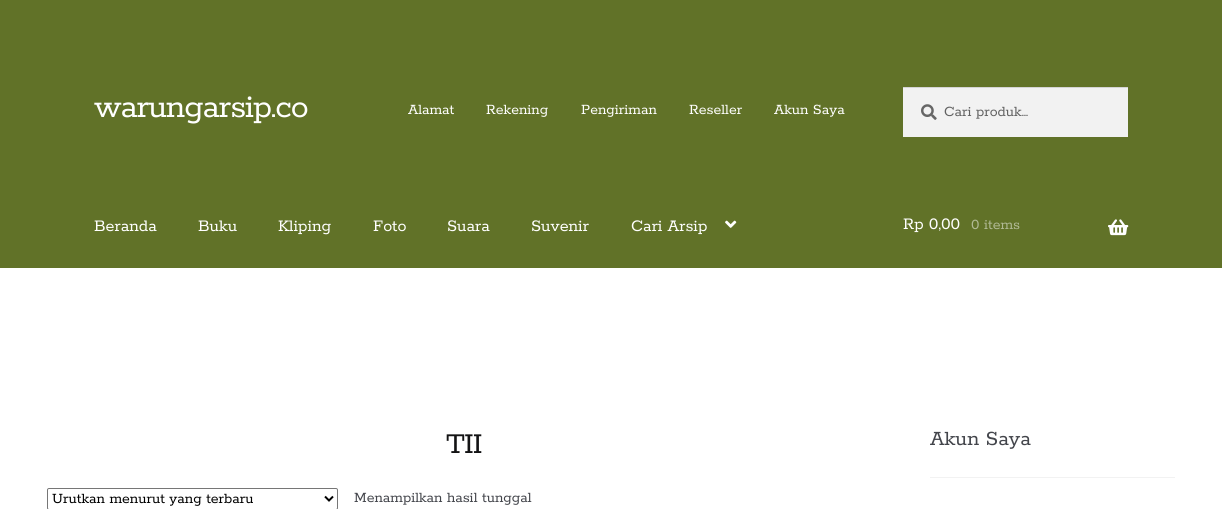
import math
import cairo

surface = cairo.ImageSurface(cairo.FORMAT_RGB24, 1222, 509)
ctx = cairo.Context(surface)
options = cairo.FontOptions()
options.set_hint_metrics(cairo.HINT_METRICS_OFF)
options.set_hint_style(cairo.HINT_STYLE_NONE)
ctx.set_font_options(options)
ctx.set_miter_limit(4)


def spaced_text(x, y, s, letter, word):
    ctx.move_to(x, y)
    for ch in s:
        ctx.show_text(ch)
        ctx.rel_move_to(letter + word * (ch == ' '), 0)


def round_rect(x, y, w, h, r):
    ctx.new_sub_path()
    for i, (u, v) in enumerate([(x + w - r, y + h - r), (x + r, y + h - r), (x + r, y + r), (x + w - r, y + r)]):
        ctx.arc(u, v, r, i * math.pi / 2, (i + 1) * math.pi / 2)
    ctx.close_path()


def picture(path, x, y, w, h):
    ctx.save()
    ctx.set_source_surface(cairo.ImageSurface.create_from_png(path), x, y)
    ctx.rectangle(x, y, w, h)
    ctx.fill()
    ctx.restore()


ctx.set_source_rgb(1, 1, 1)
ctx.paint()
ctx.set_source_rgb(0.38, 0.447, 0.157)
ctx.rectangle(0, 0, 1222, 268)
ctx.fill()
ctx.select_font_face("Rokkitt SemiBold")
ctx.set_font_size(36)
ctx.set_source_rgb(1, 1, 1)
spaced_text(94, 117, "warungarsip.co", -1, 0)
ctx.set_font_size(15.75)
ctx.move_to(408, 114)
ctx.show_text("Alamat")
ctx.move_to(486, 114)
ctx.show_text("Rekening")
ctx.move_to(581, 114)
ctx.show_text("Pengiriman")
ctx.move_to(689, 114)
ctx.show_text("Reseller")
ctx.move_to(774, 114)
ctx.show_text("Akun Saya")
ctx.set_source_rgb(0.949, 0.949, 0.949)
ctx.rectangle(903, 88, 225, 49)
ctx.fill()
picture("img1.png", 921, 104, 16, 16)
ctx.set_source_rgb(0.831, 0.831, 0.831)
ctx.rectangle(903, 87, 225, 1)
ctx.fill()
ctx.set_source_rgb(0.38, 0.38, 0.38)
ctx.move_to(944, 116)
ctx.show_text("Cari produk…")
ctx.set_font_size(18)
ctx.set_source_rgb(1, 1, 1)
ctx.move_to(94, 231)
ctx.show_text("Beranda")
ctx.move_to(198, 231)
ctx.show_text("Buku")
ctx.move_to(278, 231)
ctx.show_text("Kliping")
ctx.move_to(373, 231)
ctx.show_text("Foto")
ctx.move_to(447, 231)
ctx.show_text("Suara")
ctx.move_to(531, 231)
ctx.show_text("Suvenir")
ctx.move_to(631, 231)
ctx.show_text("Cari Arsip")
picture("img2.png", 725, 220, 12, 8)
ctx.move_to(903, 229)
ctx.show_text("Rp 0,00")
ctx.set_font_size(15.75)
ctx.set_source_rgb(0.69, 0.725, 0.58)
ctx.move_to(971, 229)
ctx.show_text("0 items")
picture("img3.png", 1108, 219, 21, 17)
ctx.set_font_size(32)
ctx.set_source_rgb(0.075, 0.075, 0.082)
spaced_text(446, 453, "TII", -1, 0)
round_rect(47.5, 488.5, 290, 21, 1.5)
ctx.set_source_rgb(0.463, 0.463, 0.463)
ctx.set_line_width(1)
ctx.stroke()
ctx.new_path()
ctx.move_to(325, 496.5)
ctx.line_to(329, 500.5)
ctx.line_to(333, 496.5)
ctx.set_source_rgb(0, 0, 0)
ctx.set_line_width(2)
ctx.stroke()
ctx.set_font_size(15.75)
ctx.move_to(52, 503)
ctx.show_text("Urutkan menurut yang terbaru")
ctx.set_source_rgb(0.263, 0.271, 0.294)
ctx.move_to(354, 502)
ctx.show_text("Menampilkan hasil tunggal")
ctx.set_source_rgb(0.949, 0.949, 0.949)
ctx.rectangle(930, 477, 245, 1)
ctx.fill()
ctx.set_font_size(22.5)
ctx.set_source_rgb(0.263, 0.271, 0.294)
ctx.move_to(930, 445)
ctx.show_text("Akun Saya")
surface.write_to_png("page.png")
